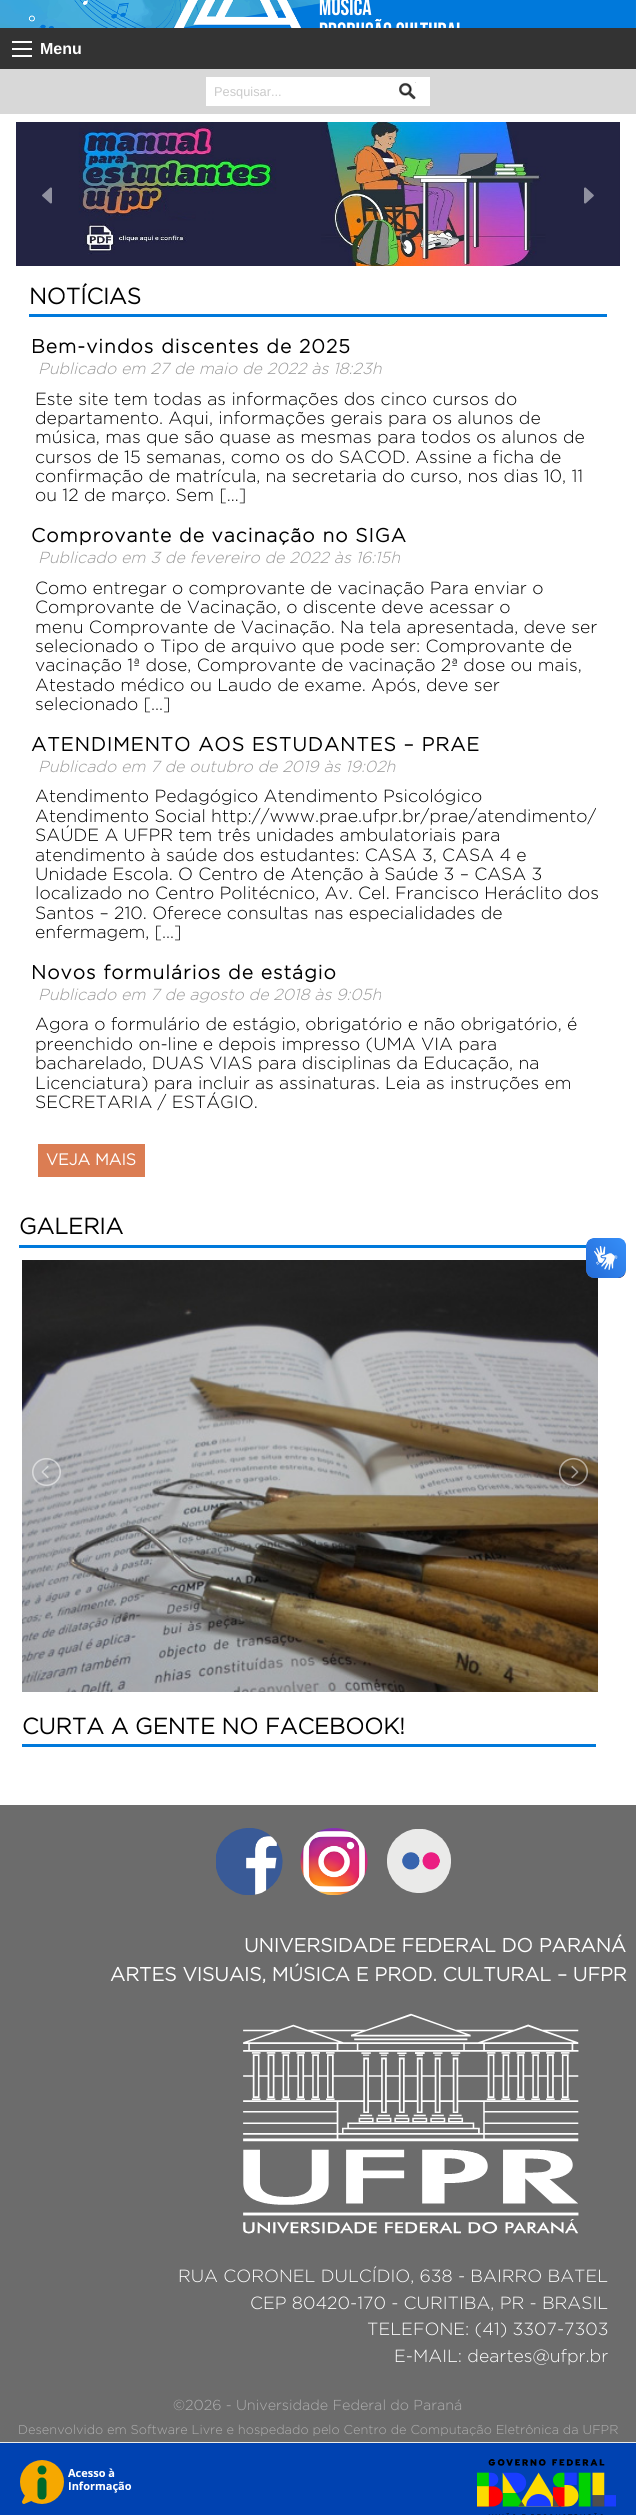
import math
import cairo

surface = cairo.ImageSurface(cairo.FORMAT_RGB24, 636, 2515)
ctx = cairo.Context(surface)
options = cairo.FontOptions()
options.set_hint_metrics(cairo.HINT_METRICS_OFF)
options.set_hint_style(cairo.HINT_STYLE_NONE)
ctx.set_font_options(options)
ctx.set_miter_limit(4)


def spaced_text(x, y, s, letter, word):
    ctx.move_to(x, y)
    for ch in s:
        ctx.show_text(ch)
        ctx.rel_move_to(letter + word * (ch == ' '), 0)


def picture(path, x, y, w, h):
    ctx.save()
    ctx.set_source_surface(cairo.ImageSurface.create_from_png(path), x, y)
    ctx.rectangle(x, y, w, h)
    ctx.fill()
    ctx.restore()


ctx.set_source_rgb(0.918, 0.918, 0.918)
ctx.paint()
picture("img1.png", 0, 0, 636, 28)
ctx.set_source_rgb(0.2, 0.2, 0.2)
ctx.rectangle(0, 28, 636, 41)
ctx.fill()
ctx.set_source_rgb(0.996, 0.996, 0.996)
ctx.rectangle(12, 55, 20, 2)
ctx.fill()
ctx.rectangle(12, 48, 20, 2)
ctx.fill()
ctx.rectangle(12, 41, 20, 2)
ctx.fill()
ctx.select_font_face("Liberation Sans", cairo.FONT_SLANT_NORMAL, cairo.FONT_WEIGHT_BOLD)
ctx.set_font_size(16)
ctx.set_source_rgb(1, 1, 1)
ctx.move_to(40, 54)
ctx.show_text("Menu")
ctx.set_source_rgb(0.847, 0.847, 0.847)
ctx.rectangle(0, 69, 636, 45)
ctx.fill()
ctx.set_source_rgb(1, 1, 1)
ctx.rectangle(206, 77, 224, 29)
ctx.fill()
ctx.select_font_face("Liberation Sans")
ctx.set_font_size(12.8)
ctx.set_source_rgb(0.792, 0.792, 0.792)
ctx.move_to(214, 96)
ctx.show_text("Pesquisar...")
picture("img2.png", 399, 82, 17, 18)
ctx.set_source_rgb(1, 1, 1)
ctx.rectangle(0, 114, 636, 1691)
ctx.fill()
picture("img3.png", 16, 122, 604, 144)
picture("img4.png", 42, 187, 10, 17)
picture("img5.png", 584, 187, 10, 17)
ctx.set_source_rgb(0, 0.475, 0.859)
ctx.rectangle(29, 314, 578, 3)
ctx.fill()
ctx.select_font_face("Gotham", cairo.FONT_SLANT_NORMAL, cairo.FONT_WEIGHT_BOLD)
ctx.set_font_size(22.4)
ctx.set_source_rgb(0, 0, 0)
ctx.move_to(29, 304)
ctx.show_text("NOTÍCIAS")
ctx.set_font_size(19.2)
spaced_text(31, 353, "Bem-vindos discentes de 2025", 1, 0)
ctx.select_font_face("Gotham Light", cairo.FONT_SLANT_ITALIC)
ctx.set_font_size(16)
ctx.set_source_rgb(0.6, 0.6, 0.6)
ctx.move_to(38, 374)
ctx.show_text("Publicado em 27 de maio de 2022 às 18:23h")
ctx.select_font_face("Gotham Light")
ctx.set_font_size(17.6)
ctx.set_source_rgb(0, 0, 0)
ctx.move_to(35, 405)
ctx.show_text("Este site tem todas as informações dos cinco cursos do")
ctx.move_to(35, 424)
ctx.show_text("departamento. Aqui, informações gerais para os alunos de")
ctx.move_to(35, 443)
ctx.show_text("música, mas que são quase as mesmas para todos os alunos de")
ctx.move_to(35, 463)
ctx.show_text("cursos de 15 semanas, como os do SACOD. Assine a ficha de")
ctx.move_to(35, 482)
ctx.show_text("confirmação de matrícula, na secretaria do curso, nos dias 10, 11")
ctx.move_to(35, 501)
ctx.show_text("ou 12 de março. Sem […]")
ctx.select_font_face("Gotham", cairo.FONT_SLANT_NORMAL, cairo.FONT_WEIGHT_BOLD)
ctx.set_font_size(19.2)
spaced_text(31, 542, "Comprovante de vacinação no SIGA", 1, 0)
ctx.select_font_face("Gotham Light", cairo.FONT_SLANT_ITALIC)
ctx.set_font_size(16)
ctx.set_source_rgb(0.6, 0.6, 0.6)
ctx.move_to(38, 563)
ctx.show_text("Publicado em 3 de fevereiro de 2022 às 16:15h")
ctx.select_font_face("Gotham Light")
ctx.set_font_size(17.6)
ctx.set_source_rgb(0, 0, 0)
ctx.move_to(35, 594)
ctx.show_text("Como entregar o comprovante de vacinação Para enviar o")
ctx.move_to(35, 613)
ctx.show_text("Comprovante de Vacinação, o discente deve acessar o")
ctx.move_to(35, 633)
ctx.show_text("menu Comprovante de Vacinação. Na tela apresentada, deve ser")
ctx.move_to(35, 652)
ctx.show_text("selecionado o Tipo de arquivo que pode ser: Comprovante de")
ctx.move_to(35, 671)
ctx.show_text("vacinação 1ª dose, Comprovante de vacinação 2ª dose ou mais,")
ctx.move_to(35, 691)
ctx.show_text("Atestado médico ou Laudo de exame. Após, deve ser")
ctx.move_to(35, 710)
ctx.show_text("selecionado […]")
ctx.select_font_face("Gotham", cairo.FONT_SLANT_NORMAL, cairo.FONT_WEIGHT_BOLD)
ctx.set_font_size(19.2)
spaced_text(31, 751, "ATENDIMENTO AOS ESTUDANTES – PRAE", 1, 0)
ctx.select_font_face("Gotham Light", cairo.FONT_SLANT_ITALIC)
ctx.set_font_size(16)
ctx.set_source_rgb(0.6, 0.6, 0.6)
ctx.move_to(38, 772)
ctx.show_text("Publicado em 7 de outubro de 2019 às 19:02h")
ctx.select_font_face("Gotham Light")
ctx.set_font_size(17.6)
ctx.set_source_rgb(0, 0, 0)
ctx.move_to(35, 802)
ctx.show_text("Atendimento Pedagógico Atendimento Psicológico")
ctx.move_to(35, 822)
ctx.show_text("Atendimento Social http://www.prae.ufpr.br/prae/atendimento/")
ctx.move_to(35, 841)
ctx.show_text("SAÚDE A UFPR tem três unidades ambulatoriais para")
ctx.move_to(35, 861)
ctx.show_text("atendimento à saúde dos estudantes: CASA 3, CASA 4 e")
ctx.move_to(35, 880)
ctx.show_text("Unidade Escola. O Centro de Atenção à Saúde 3 – CASA 3")
ctx.move_to(35, 899)
ctx.show_text("localizado no Centro Politécnico, Av. Cel. Francisco Heráclito dos")
ctx.move_to(35, 919)
ctx.show_text("Santos – 210. Oferece consultas nas especialidades de")
ctx.move_to(35, 938)
ctx.show_text("enfermagem, […]")
ctx.select_font_face("Gotham", cairo.FONT_SLANT_NORMAL, cairo.FONT_WEIGHT_BOLD)
ctx.set_font_size(19.2)
spaced_text(31, 979, "Novos formulários de estágio", 1, 0)
ctx.select_font_face("Gotham Light", cairo.FONT_SLANT_ITALIC)
ctx.set_font_size(16)
ctx.set_source_rgb(0.6, 0.6, 0.6)
ctx.move_to(38, 1000)
ctx.show_text("Publicado em 7 de agosto de 2018 às 9:05h")
ctx.select_font_face("Gotham Light")
ctx.set_font_size(17.6)
ctx.set_source_rgb(0, 0, 0)
ctx.move_to(35, 1030)
ctx.show_text("Agora o formulário de estágio, obrigatório e não obrigatório, é")
ctx.move_to(35, 1050)
ctx.show_text("preenchido on-line e depois impresso (UMA VIA para")
ctx.move_to(35, 1069)
ctx.show_text("bacharelado, DUAS VIAS para disciplinas da Educação, na")
ctx.move_to(35, 1089)
ctx.show_text("Licenciatura) para incluir as assinaturas. Leia as instruções em")
ctx.move_to(35, 1108)
ctx.show_text("SECRETARIA / ESTÁGIO.")
ctx.set_source_rgb(0.859, 0.49, 0.325)
ctx.rectangle(38, 1144, 107, 33)
ctx.fill()
ctx.select_font_face("Gotham", cairo.FONT_SLANT_NORMAL, cairo.FONT_WEIGHT_BOLD)
ctx.set_font_size(16)
ctx.set_source_rgb(1, 1, 1)
ctx.move_to(46, 1165)
ctx.show_text("VEJA MAIS")
ctx.set_source_rgb(0, 0.475, 0.859)
ctx.rectangle(19, 1245, 568, 3)
ctx.fill()
ctx.set_font_size(22.4)
ctx.set_source_rgb(0, 0, 0)
ctx.move_to(19, 1234)
ctx.show_text("GALERIA")
picture("img6.png", 22, 1260, 576, 432)
picture("img7.png", 32, 1458, 29, 28)
picture("img8.png", 559, 1458, 29, 28)
ctx.set_source_rgb(0, 0.475, 0.859)
ctx.rectangle(22, 1744, 574, 3)
ctx.fill()
ctx.set_source_rgb(0, 0, 0)
ctx.move_to(22, 1734)
ctx.show_text("CURTA A GENTE NO FACEBOOK!")
picture("img9.png", 586, 1238, 40, 40)
picture("img10.png", 586, 1238, 40, 40)
ctx.set_source_rgb(0.424, 0.424, 0.424)
ctx.rectangle(0, 1805, 636, 637)
ctx.fill()
picture("img11.png", 216, 1828, 67, 67)
picture("img12.png", 300, 1828, 68, 67)
picture("img13.png", 387, 1829, 64, 64)
ctx.set_font_size(19.2)
ctx.set_source_rgb(1, 1, 1)
ctx.move_to(244, 1952)
ctx.show_text("UNIVERSIDADE FEDERAL DO PARANÁ")
ctx.move_to(110, 1981)
ctx.show_text("ARTES VISUAIS, MÚSICA E PROD. CULTURAL – UFPR")
picture("img14.png", 243, 2013, 336, 221)
ctx.select_font_face("Gotham Light")
ctx.set_font_size(17.6)
ctx.move_to(178, 2282)
ctx.show_text("RUA CORONEL DULCÍDIO, 638 - BAIRRO BATEL")
ctx.move_to(250, 2309)
ctx.show_text("CEP 80420-170 - CURITIBA, PR - BRASIL")
ctx.move_to(367, 2335)
ctx.show_text("TELEFONE: (41) 3307-7303")
ctx.move_to(394, 2362)
ctx.show_text("E-MAIL: deartes@ufpr.br")
ctx.set_font_size(14.4)
ctx.set_source_rgb(0.686, 0.686, 0.686)
ctx.move_to(173, 2410)
ctx.show_text("©2026 - Universidade Federal do Paraná")
ctx.set_font_size(12.8)
ctx.move_to(18, 2434)
ctx.show_text("Desenvolvido em Software Livre e hospedado pelo Centro de Computação Eletrônica da UFPR")
ctx.set_source_rgb(0, 0.259, 0.694)
ctx.rectangle(0, 2443, 636, 72)
ctx.fill()
picture("img15.png", 20, 2460, 112, 44)
picture("img16.png", 477, 2459, 139, 56)
surface.write_to_png("page.png")
